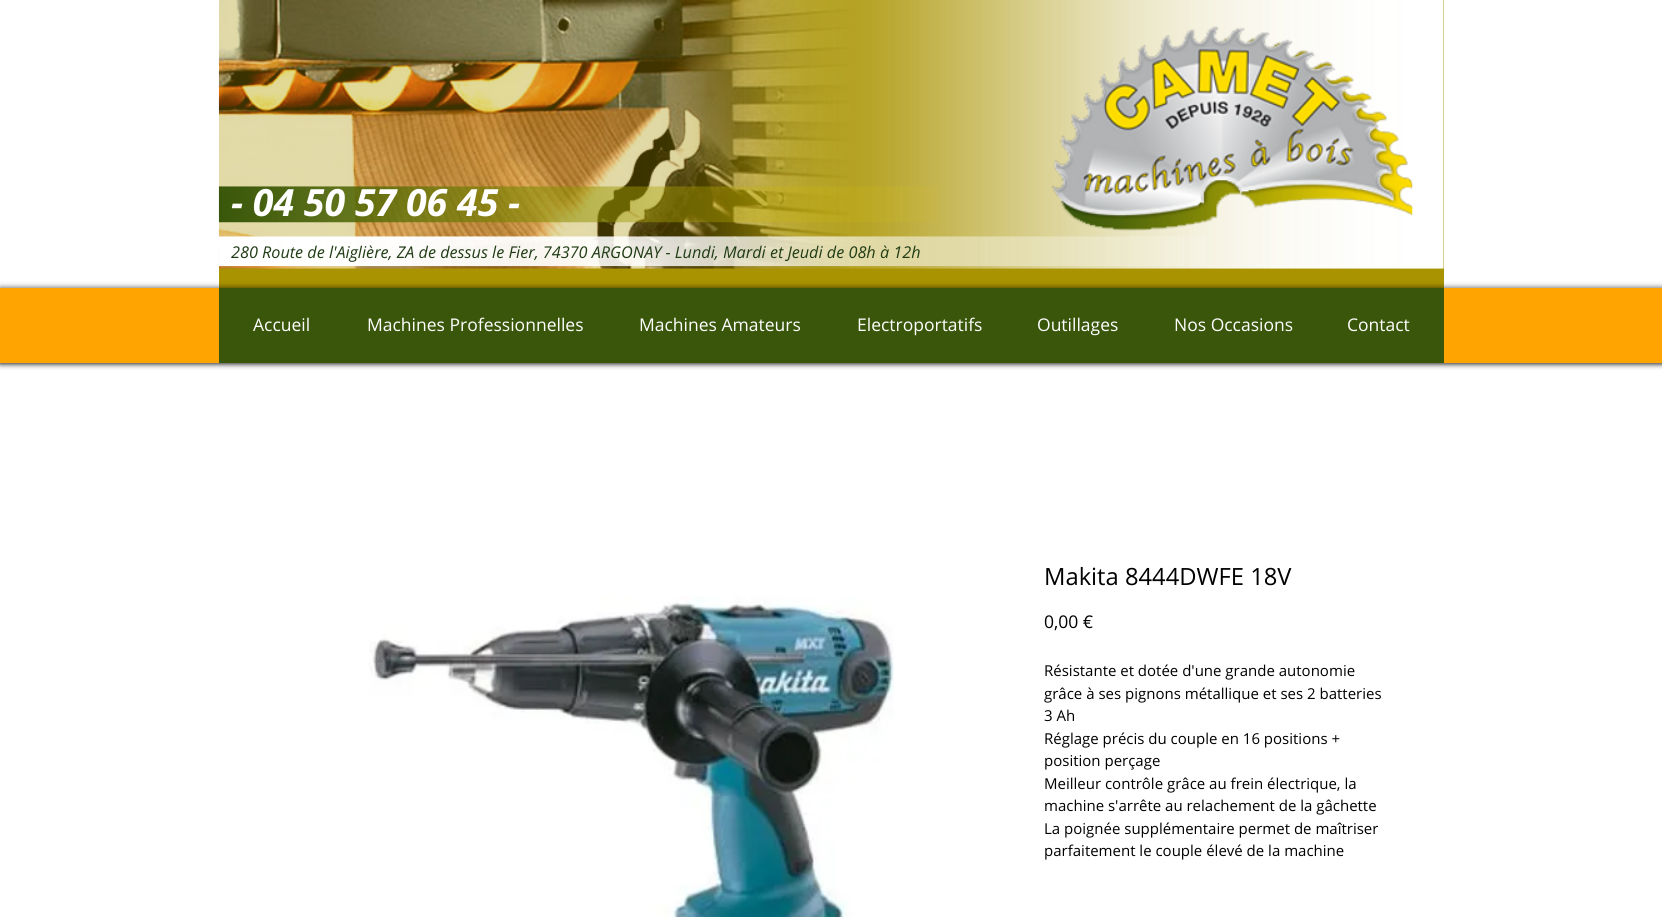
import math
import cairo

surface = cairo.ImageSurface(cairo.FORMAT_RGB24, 1662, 917)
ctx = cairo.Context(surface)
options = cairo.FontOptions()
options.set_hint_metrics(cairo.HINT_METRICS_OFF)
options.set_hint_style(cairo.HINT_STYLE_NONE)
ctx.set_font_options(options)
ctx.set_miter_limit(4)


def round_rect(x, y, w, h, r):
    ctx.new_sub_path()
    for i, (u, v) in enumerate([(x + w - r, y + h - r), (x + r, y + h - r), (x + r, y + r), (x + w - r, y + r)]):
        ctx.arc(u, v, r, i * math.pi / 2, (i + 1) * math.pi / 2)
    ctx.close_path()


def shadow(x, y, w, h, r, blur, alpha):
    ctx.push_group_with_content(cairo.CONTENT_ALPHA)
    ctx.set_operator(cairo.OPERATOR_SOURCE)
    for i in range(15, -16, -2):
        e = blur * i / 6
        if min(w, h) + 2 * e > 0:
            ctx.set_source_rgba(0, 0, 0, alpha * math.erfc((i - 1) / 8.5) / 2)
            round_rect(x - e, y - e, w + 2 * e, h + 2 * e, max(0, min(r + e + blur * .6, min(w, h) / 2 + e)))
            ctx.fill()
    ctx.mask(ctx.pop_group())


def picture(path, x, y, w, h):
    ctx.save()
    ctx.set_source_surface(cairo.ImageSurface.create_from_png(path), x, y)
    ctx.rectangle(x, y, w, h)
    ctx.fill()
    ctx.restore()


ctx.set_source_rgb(1, 1, 1)
ctx.paint()
ctx.set_source_rgb(0, 0, 0)
shadow(0, 0, 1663, 363, 0, 3, 0.7)
ctx.set_source_rgb(1, 1, 1)
ctx.rectangle(0, 0, 1662, 288)
ctx.fill()
ctx.set_source_rgb(0.663, 0.576, 0)
ctx.rectangle(219, 0, 1225, 288)
ctx.fill()
picture("img2.png", 744, 0, 700, 269)
picture("img1.png", 218, 0, 631, 269)
picture("img3.png", 218, 186, 721, 37)
picture("img4.png", 1051, 26, 362, 205)
ctx.select_font_face("Open Sans", cairo.FONT_SLANT_ITALIC, cairo.FONT_WEIGHT_BOLD)
ctx.set_font_size(37.5)
ctx.set_source_rgb(1, 1, 1)
ctx.move_to(231, 216)
ctx.show_text("- 04 50 57 06 45 -")
picture("img5.png", 219, 236, 987, 31)
ctx.select_font_face("Open Sans", cairo.FONT_SLANT_ITALIC)
ctx.set_font_size(16.25)
ctx.set_source_rgb(0.129, 0.239, 0.086)
ctx.move_to(231, 258)
ctx.show_text("280 Route de l'Aiglière, ZA de dessus le Fier, 74370 ARGONAY - Lundi, Mardi et Jeudi de 08h à 12h")
ctx.set_source_rgb(0, 0, 0)
shadow(0, 288, 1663, 75, 0, 3, 0.7)
ctx.set_source_rgb(1, 0.643, 0)
ctx.rectangle(0, 288, 1662, 75)
ctx.fill()
ctx.set_source_rgb(0.224, 0.337, 0.043)
ctx.rectangle(219, 288, 1225, 75)
ctx.fill()
ctx.select_font_face("Open Sans")
ctx.set_font_size(17.5)
ctx.set_source_rgb(1, 1, 1)
ctx.move_to(253, 331)
ctx.show_text("Accueil")
ctx.move_to(367, 331)
ctx.show_text("Machines Professionnelles")
ctx.move_to(639, 331)
ctx.show_text("Machines Amateurs")
ctx.move_to(857, 331)
ctx.show_text("Electroportatifs")
ctx.move_to(1037, 331)
ctx.show_text("Outillages")
ctx.move_to(1174, 331)
ctx.show_text("Nos Occasions")
ctx.move_to(1347, 331)
ctx.show_text("Contact")
picture("img6.png", 369, 596, 525, 321)
ctx.set_font_size(23.75)
ctx.set_source_rgb(0, 0, 0)
ctx.move_to(1044, 585)
ctx.show_text("Makita 8444DWFE 18V")
ctx.set_font_size(17.5)
ctx.move_to(1044, 628)
ctx.show_text("0,00 €")
ctx.set_font_size(15)
ctx.move_to(1044, 676)
ctx.show_text("Résistante et dotée d'une grande autonomie")
ctx.move_to(1044, 699)
ctx.show_text("grâce à ses pignons métallique et ses 2 batteries")
ctx.move_to(1044, 721)
ctx.show_text("3 Ah")
ctx.move_to(1044, 744)
ctx.show_text("Réglage précis du couple en 16 positions +")
ctx.move_to(1044, 766)
ctx.show_text("position perçage")
ctx.move_to(1044, 789)
ctx.show_text("Meilleur contrôle grâce au frein électrique, la")
ctx.move_to(1044, 811)
ctx.show_text("machine s'arrête au relachement de la gâchette")
ctx.move_to(1044, 834)
ctx.show_text("La poignée supplémentaire permet de maîtriser")
ctx.move_to(1044, 856)
ctx.show_text("parfaitement le couple élevé de la machine")
surface.write_to_png("page.png")
